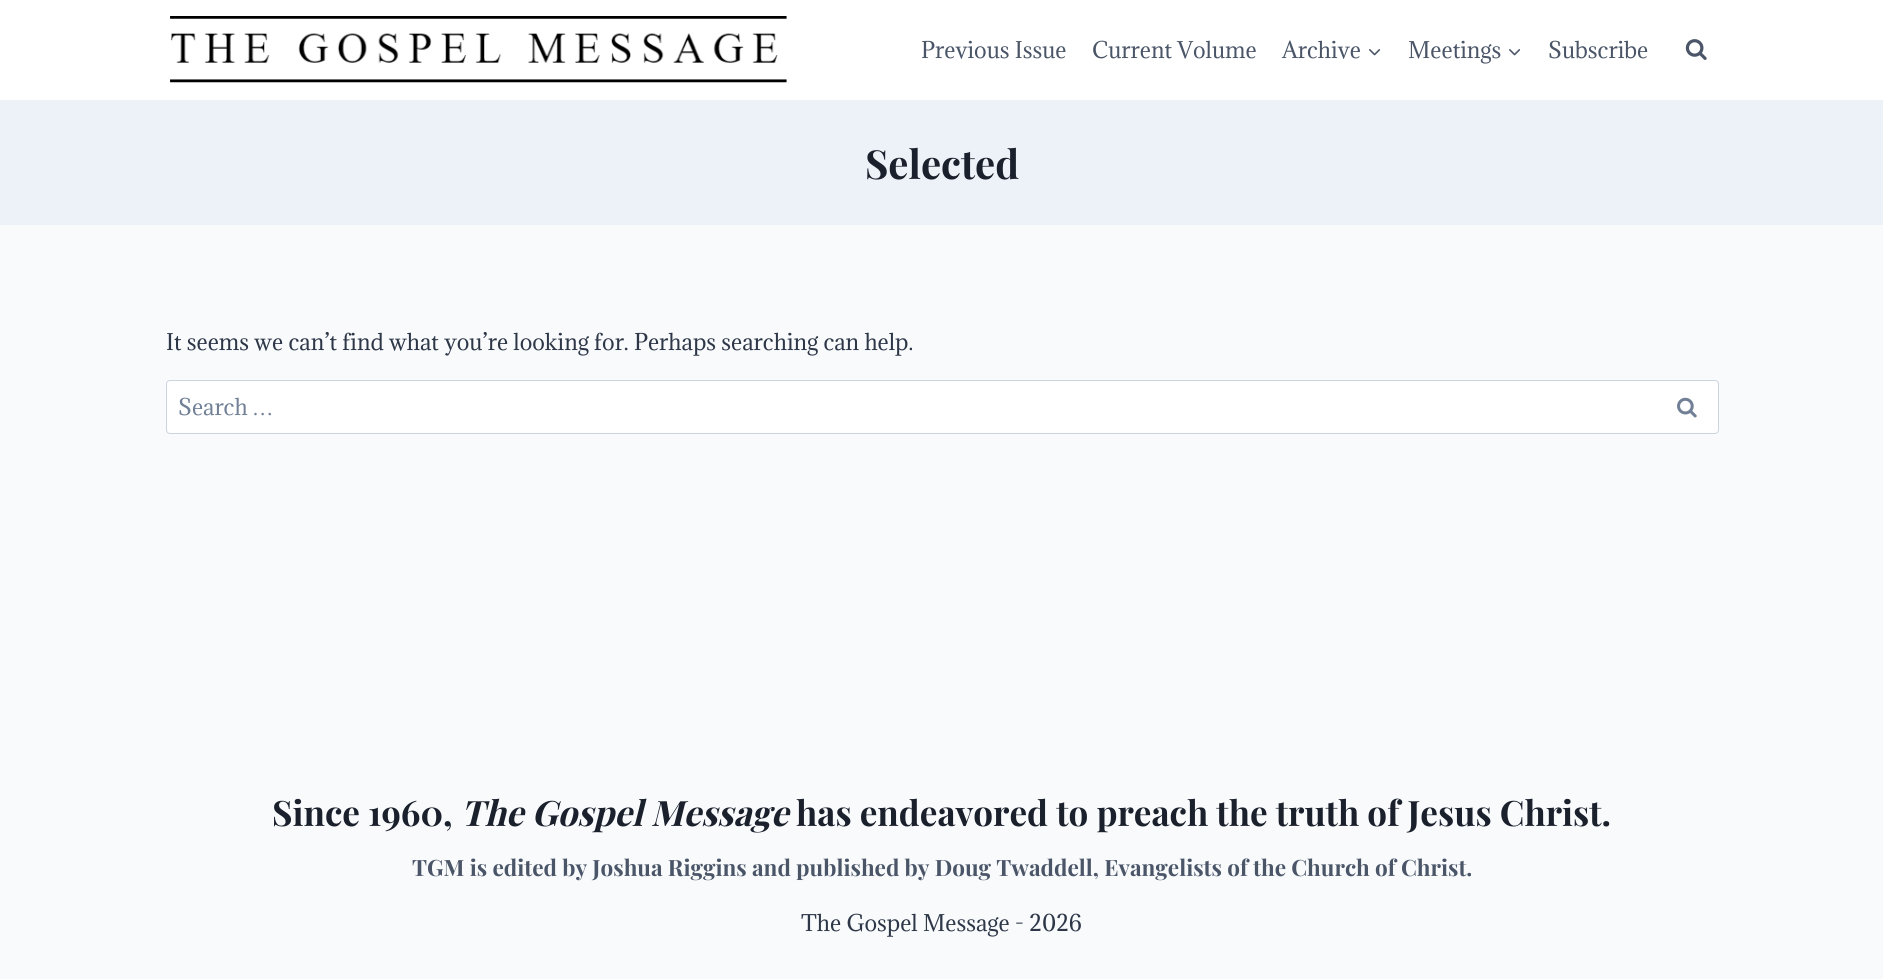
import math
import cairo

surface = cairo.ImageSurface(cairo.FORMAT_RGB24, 1883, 979)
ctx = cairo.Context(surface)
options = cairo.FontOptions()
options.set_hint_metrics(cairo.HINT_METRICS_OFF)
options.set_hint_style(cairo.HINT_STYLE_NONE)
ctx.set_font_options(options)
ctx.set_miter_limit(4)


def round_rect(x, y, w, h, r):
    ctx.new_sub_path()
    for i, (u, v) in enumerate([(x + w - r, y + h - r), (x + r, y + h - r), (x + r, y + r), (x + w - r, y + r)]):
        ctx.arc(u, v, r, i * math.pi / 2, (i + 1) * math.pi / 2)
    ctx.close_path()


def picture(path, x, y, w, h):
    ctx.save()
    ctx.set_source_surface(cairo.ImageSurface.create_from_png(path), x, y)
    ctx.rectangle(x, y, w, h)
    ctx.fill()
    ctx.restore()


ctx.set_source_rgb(0.969, 0.98, 0.988)
ctx.paint()
ctx.set_source_rgb(1, 1, 1)
ctx.rectangle(0, 0, 1883, 100)
ctx.fill()
picture("img1.png", 170, 16, 617, 67)
ctx.select_font_face("Adamina")
ctx.set_font_size(21.25)
ctx.set_source_rgb(0.29, 0.333, 0.408)
ctx.move_to(921, 58)
ctx.show_text("Previous Issue")
ctx.move_to(1092, 58)
ctx.show_text("Current Volume")
ctx.move_to(1282, 58)
ctx.show_text("Archive")
picture("img2.png", 1369, 49, 12, 7)
ctx.move_to(1408, 58)
ctx.show_text("Meetings")
picture("img2.png", 1509, 49, 12, 7)
ctx.move_to(1548, 58)
ctx.show_text("Subscribe")
picture("img3.png", 1685, 39, 22, 21)
ctx.set_source_rgb(0.929, 0.949, 0.969)
ctx.rectangle(0, 100, 1883, 125)
ctx.fill()
ctx.select_font_face("Playfair Display", cairo.FONT_SLANT_NORMAL, cairo.FONT_WEIGHT_BOLD)
ctx.set_font_size(40)
ctx.set_source_rgb(0.102, 0.125, 0.173)
ctx.move_to(865, 179)
ctx.show_text("Selected")
ctx.select_font_face("Adamina")
ctx.set_font_size(21.25)
ctx.set_source_rgb(0.176, 0.216, 0.282)
ctx.move_to(166, 350)
ctx.show_text("It seems we can’t find what you’re looking for. Perhaps searching can help.")
ctx.set_source_rgb(1, 1, 1)
round_rect(166.5, 380.5, 1552, 53, 3.5)
ctx.fill_preserve()
ctx.set_source_rgb(0.796, 0.835, 0.878)
ctx.set_line_width(1)
ctx.stroke()
ctx.set_source_rgb(0.443, 0.502, 0.588)
ctx.move_to(178, 415)
ctx.show_text("Search")
ctx.select_font_face("Liberation Serif")
ctx.move_to(252, 415)
ctx.show_text("…")
picture("img4.png", 1677, 397, 20, 21)
ctx.select_font_face("Playfair Display", cairo.FONT_SLANT_NORMAL, cairo.FONT_WEIGHT_BOLD)
ctx.set_font_size(35)
ctx.set_source_rgb(0.102, 0.125, 0.173)
ctx.move_to(272, 826)
ctx.show_text("Since 1960,")
ctx.select_font_face("Playfair Display", cairo.FONT_SLANT_ITALIC, cairo.FONT_WEIGHT_BOLD)
ctx.move_to(461, 826)
ctx.show_text("The Gospel Message")
ctx.select_font_face("Playfair Display", cairo.FONT_SLANT_NORMAL, cairo.FONT_WEIGHT_BOLD)
ctx.move_to(796, 826)
ctx.show_text("has endeavored to preach the truth of Jesus Christ.")
ctx.set_font_size(22.5)
ctx.set_source_rgb(0.29, 0.333, 0.408)
ctx.move_to(412, 876)
ctx.show_text("TGM is edited by Joshua Riggins and published by Doug Twaddell, Evangelists of the Church of Christ.")
ctx.select_font_face("Adamina")
ctx.set_font_size(21.25)
ctx.set_source_rgb(0.176, 0.216, 0.282)
ctx.move_to(801, 931)
ctx.show_text("The Gospel Message - 2026")
surface.write_to_png("page.png")
